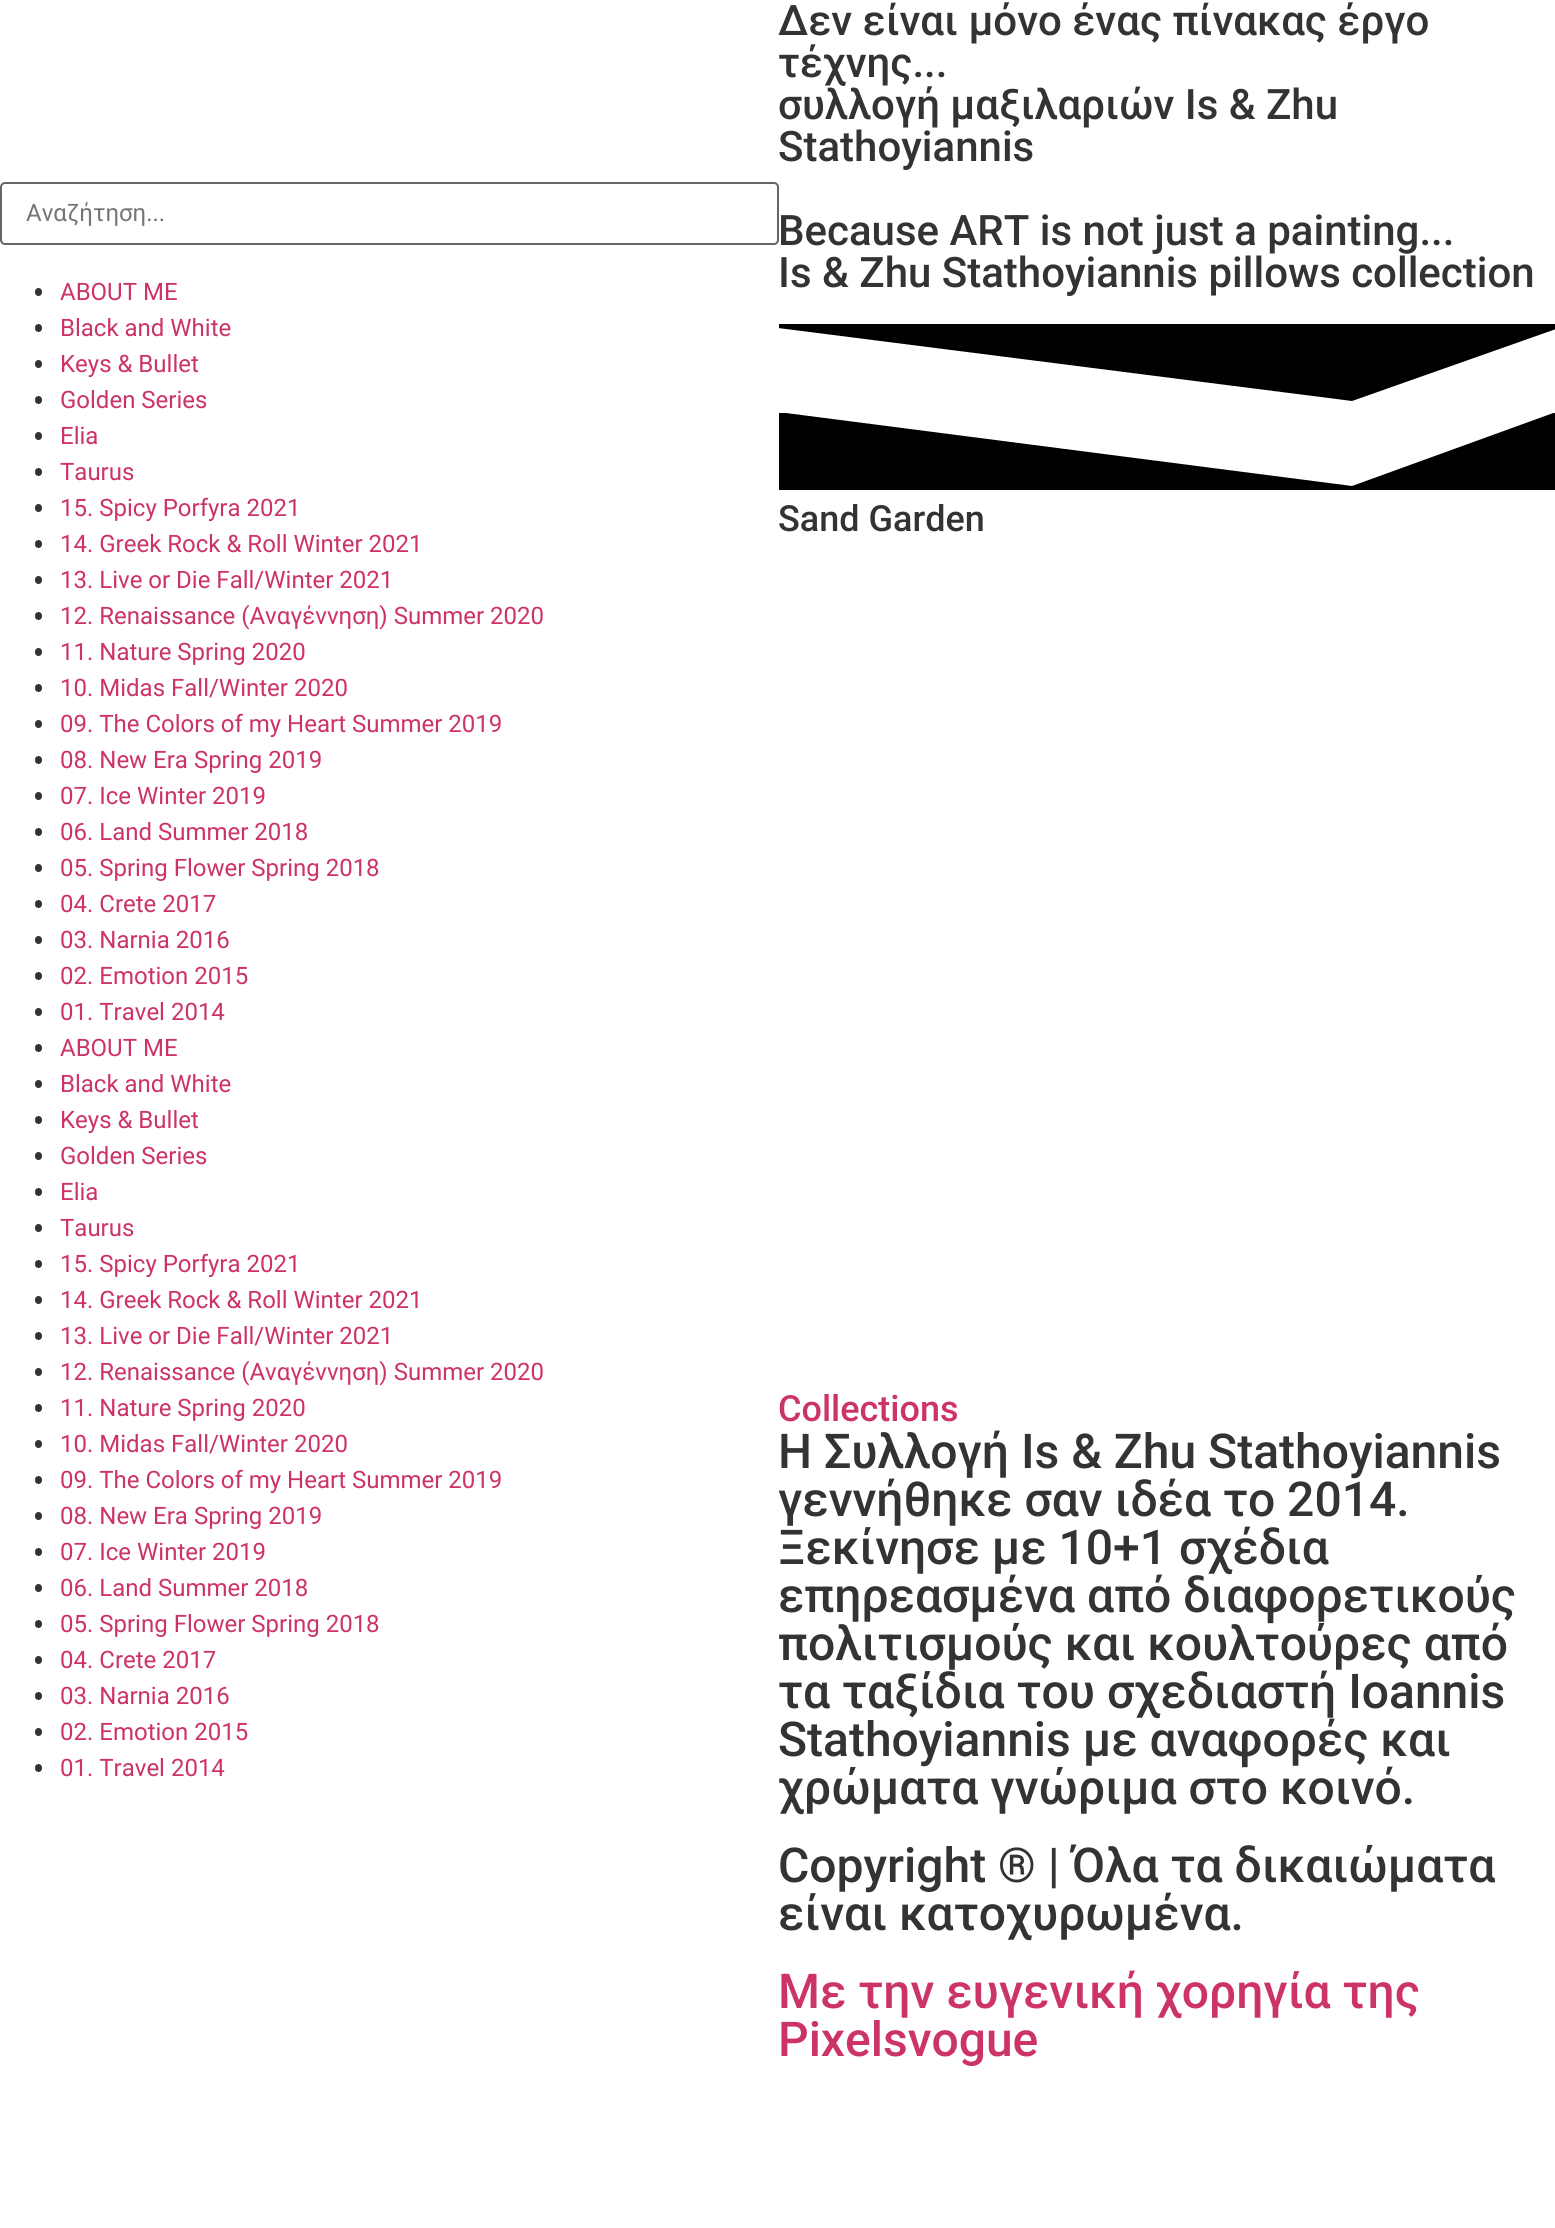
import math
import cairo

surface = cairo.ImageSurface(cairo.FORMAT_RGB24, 1555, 2228)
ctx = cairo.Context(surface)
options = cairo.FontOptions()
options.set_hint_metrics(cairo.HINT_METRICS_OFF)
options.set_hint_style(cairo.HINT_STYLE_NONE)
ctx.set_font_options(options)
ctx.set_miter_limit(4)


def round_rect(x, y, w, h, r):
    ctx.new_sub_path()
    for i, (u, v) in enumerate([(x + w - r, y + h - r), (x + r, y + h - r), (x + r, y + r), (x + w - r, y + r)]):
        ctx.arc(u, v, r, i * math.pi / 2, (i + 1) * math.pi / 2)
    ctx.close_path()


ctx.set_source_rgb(1, 1, 1)
ctx.paint()
round_rect(1, 183, 777, 61, 4)
ctx.set_source_rgb(0.4, 0.4, 0.4)
ctx.stroke()
ctx.select_font_face("Roboto")
ctx.set_font_size(24)
ctx.set_source_rgb(0.459, 0.459, 0.459)
ctx.move_to(26, 221)
ctx.show_text("Αναζήτηση...")
ctx.set_source_rgb(0.2, 0.2, 0.2)
round_rect(35, 288, 7, 8, 3.5)
ctx.fill()
ctx.set_source_rgb(0.8, 0.2, 0.4)
ctx.move_to(60, 300)
ctx.show_text("ABOUT ME")
ctx.set_source_rgb(0.2, 0.2, 0.2)
round_rect(35, 324, 7, 8, 3.5)
ctx.fill()
ctx.set_source_rgb(0.8, 0.2, 0.4)
ctx.move_to(60, 336)
ctx.show_text("Black and White")
ctx.set_source_rgb(0.2, 0.2, 0.2)
round_rect(35, 360, 7, 8, 3.5)
ctx.fill()
ctx.set_source_rgb(0.8, 0.2, 0.4)
ctx.move_to(60, 372)
ctx.show_text("Keys & Bullet")
ctx.set_source_rgb(0.2, 0.2, 0.2)
round_rect(35, 396, 7, 8, 3.5)
ctx.fill()
ctx.set_source_rgb(0.8, 0.2, 0.4)
ctx.move_to(60, 408)
ctx.show_text("Golden Series")
ctx.set_source_rgb(0.2, 0.2, 0.2)
round_rect(35, 432, 7, 8, 3.5)
ctx.fill()
ctx.set_source_rgb(0.8, 0.2, 0.4)
ctx.move_to(60, 444)
ctx.show_text("Elia")
ctx.set_source_rgb(0.2, 0.2, 0.2)
round_rect(35, 468, 7, 8, 3.5)
ctx.fill()
ctx.set_source_rgb(0.8, 0.2, 0.4)
ctx.move_to(60, 480)
ctx.show_text("Taurus")
ctx.set_source_rgb(0.2, 0.2, 0.2)
round_rect(35, 504, 7, 8, 3.5)
ctx.fill()
ctx.set_source_rgb(0.8, 0.2, 0.4)
ctx.move_to(60, 516)
ctx.show_text("15. Spicy Porfyra 2021")
ctx.set_source_rgb(0.2, 0.2, 0.2)
round_rect(35, 540, 7, 8, 3.5)
ctx.fill()
ctx.set_source_rgb(0.8, 0.2, 0.4)
ctx.move_to(60, 552)
ctx.show_text("14. Greek Rock & Roll Winter 2021")
ctx.set_source_rgb(0.2, 0.2, 0.2)
round_rect(35, 576, 7, 8, 3.5)
ctx.fill()
ctx.set_source_rgb(0.8, 0.2, 0.4)
ctx.move_to(60, 588)
ctx.show_text("13. Live or Die Fall/Winter 2021")
ctx.set_source_rgb(0.2, 0.2, 0.2)
round_rect(35, 612, 7, 8, 3.5)
ctx.fill()
ctx.set_source_rgb(0.8, 0.2, 0.4)
ctx.move_to(60, 624)
ctx.show_text("12. Renaissance (Aναγέννηση) Summer 2020")
ctx.set_source_rgb(0.2, 0.2, 0.2)
round_rect(35, 648, 7, 8, 3.5)
ctx.fill()
ctx.set_source_rgb(0.8, 0.2, 0.4)
ctx.move_to(60, 660)
ctx.show_text("11. Nature Spring 2020")
ctx.set_source_rgb(0.2, 0.2, 0.2)
round_rect(35, 684, 7, 8, 3.5)
ctx.fill()
ctx.set_source_rgb(0.8, 0.2, 0.4)
ctx.move_to(60, 696)
ctx.show_text("10. Midas Fall/Winter 2020")
ctx.set_source_rgb(0.2, 0.2, 0.2)
round_rect(35, 720, 7, 8, 3.5)
ctx.fill()
ctx.set_source_rgb(0.8, 0.2, 0.4)
ctx.move_to(60, 732)
ctx.show_text("09. The Colors of my Heart Summer 2019")
ctx.set_source_rgb(0.2, 0.2, 0.2)
round_rect(35, 756, 7, 8, 3.5)
ctx.fill()
ctx.set_source_rgb(0.8, 0.2, 0.4)
ctx.move_to(60, 768)
ctx.show_text("08. New Era Spring 2019")
ctx.set_source_rgb(0.2, 0.2, 0.2)
round_rect(35, 792, 7, 8, 3.5)
ctx.fill()
ctx.set_source_rgb(0.8, 0.2, 0.4)
ctx.move_to(60, 804)
ctx.show_text("07. Ice Winter 2019")
ctx.set_source_rgb(0.2, 0.2, 0.2)
round_rect(35, 828, 7, 8, 3.5)
ctx.fill()
ctx.set_source_rgb(0.8, 0.2, 0.4)
ctx.move_to(60, 840)
ctx.show_text("06. Land Summer 2018")
ctx.set_source_rgb(0.2, 0.2, 0.2)
round_rect(35, 864, 7, 8, 3.5)
ctx.fill()
ctx.set_source_rgb(0.8, 0.2, 0.4)
ctx.move_to(60, 876)
ctx.show_text("05. Spring Flower Spring 2018")
ctx.set_source_rgb(0.2, 0.2, 0.2)
round_rect(35, 900, 7, 8, 3.5)
ctx.fill()
ctx.set_source_rgb(0.8, 0.2, 0.4)
ctx.move_to(60, 912)
ctx.show_text("04. Crete 2017")
ctx.set_source_rgb(0.2, 0.2, 0.2)
round_rect(35, 936, 7, 8, 3.5)
ctx.fill()
ctx.set_source_rgb(0.8, 0.2, 0.4)
ctx.move_to(60, 948)
ctx.show_text("03. Narnia 2016")
ctx.set_source_rgb(0.2, 0.2, 0.2)
round_rect(35, 972, 7, 8, 3.5)
ctx.fill()
ctx.set_source_rgb(0.8, 0.2, 0.4)
ctx.move_to(60, 984)
ctx.show_text("02. Emotion 2015")
ctx.set_source_rgb(0.2, 0.2, 0.2)
round_rect(35, 1008, 7, 8, 3.5)
ctx.fill()
ctx.set_source_rgb(0.8, 0.2, 0.4)
ctx.move_to(60, 1020)
ctx.show_text("01. Travel 2014")
ctx.set_source_rgb(0.2, 0.2, 0.2)
round_rect(35, 1044, 7, 8, 3.5)
ctx.fill()
ctx.set_source_rgb(0.8, 0.2, 0.4)
ctx.move_to(60, 1056)
ctx.show_text("ABOUT ME")
ctx.set_source_rgb(0.2, 0.2, 0.2)
round_rect(35, 1080, 7, 8, 3.5)
ctx.fill()
ctx.set_source_rgb(0.8, 0.2, 0.4)
ctx.move_to(60, 1092)
ctx.show_text("Black and White")
ctx.set_source_rgb(0.2, 0.2, 0.2)
round_rect(35, 1116, 7, 8, 3.5)
ctx.fill()
ctx.set_source_rgb(0.8, 0.2, 0.4)
ctx.move_to(60, 1128)
ctx.show_text("Keys & Bullet")
ctx.set_source_rgb(0.2, 0.2, 0.2)
round_rect(35, 1152, 7, 8, 3.5)
ctx.fill()
ctx.set_source_rgb(0.8, 0.2, 0.4)
ctx.move_to(60, 1164)
ctx.show_text("Golden Series")
ctx.set_source_rgb(0.2, 0.2, 0.2)
round_rect(35, 1188, 7, 8, 3.5)
ctx.fill()
ctx.set_source_rgb(0.8, 0.2, 0.4)
ctx.move_to(60, 1200)
ctx.show_text("Elia")
ctx.set_source_rgb(0.2, 0.2, 0.2)
round_rect(35, 1224, 7, 8, 3.5)
ctx.fill()
ctx.set_source_rgb(0.8, 0.2, 0.4)
ctx.move_to(60, 1236)
ctx.show_text("Taurus")
ctx.set_source_rgb(0.2, 0.2, 0.2)
round_rect(35, 1260, 7, 8, 3.5)
ctx.fill()
ctx.set_source_rgb(0.8, 0.2, 0.4)
ctx.move_to(60, 1272)
ctx.show_text("15. Spicy Porfyra 2021")
ctx.set_source_rgb(0.2, 0.2, 0.2)
round_rect(35, 1296, 7, 8, 3.5)
ctx.fill()
ctx.set_source_rgb(0.8, 0.2, 0.4)
ctx.move_to(60, 1308)
ctx.show_text("14. Greek Rock & Roll Winter 2021")
ctx.set_source_rgb(0.2, 0.2, 0.2)
round_rect(35, 1332, 7, 8, 3.5)
ctx.fill()
ctx.set_source_rgb(0.8, 0.2, 0.4)
ctx.move_to(60, 1344)
ctx.show_text("13. Live or Die Fall/Winter 2021")
ctx.set_source_rgb(0.2, 0.2, 0.2)
round_rect(35, 1368, 7, 8, 3.5)
ctx.fill()
ctx.set_source_rgb(0.8, 0.2, 0.4)
ctx.move_to(60, 1380)
ctx.show_text("12. Renaissance (Aναγέννηση) Summer 2020")
ctx.set_source_rgb(0.2, 0.2, 0.2)
round_rect(35, 1404, 7, 8, 3.5)
ctx.fill()
ctx.set_source_rgb(0.8, 0.2, 0.4)
ctx.move_to(60, 1416)
ctx.show_text("11. Nature Spring 2020")
ctx.set_source_rgb(0.2, 0.2, 0.2)
round_rect(35, 1440, 7, 8, 3.5)
ctx.fill()
ctx.set_source_rgb(0.8, 0.2, 0.4)
ctx.move_to(60, 1452)
ctx.show_text("10. Midas Fall/Winter 2020")
ctx.set_source_rgb(0.2, 0.2, 0.2)
round_rect(35, 1476, 7, 8, 3.5)
ctx.fill()
ctx.set_source_rgb(0.8, 0.2, 0.4)
ctx.move_to(60, 1488)
ctx.show_text("09. The Colors of my Heart Summer 2019")
ctx.set_source_rgb(0.2, 0.2, 0.2)
round_rect(35, 1512, 7, 8, 3.5)
ctx.fill()
ctx.set_source_rgb(0.8, 0.2, 0.4)
ctx.move_to(60, 1524)
ctx.show_text("08. New Era Spring 2019")
ctx.set_source_rgb(0.2, 0.2, 0.2)
round_rect(35, 1548, 7, 8, 3.5)
ctx.fill()
ctx.set_source_rgb(0.8, 0.2, 0.4)
ctx.move_to(60, 1560)
ctx.show_text("07. Ice Winter 2019")
ctx.set_source_rgb(0.2, 0.2, 0.2)
round_rect(35, 1584, 7, 8, 3.5)
ctx.fill()
ctx.set_source_rgb(0.8, 0.2, 0.4)
ctx.move_to(60, 1596)
ctx.show_text("06. Land Summer 2018")
ctx.set_source_rgb(0.2, 0.2, 0.2)
round_rect(35, 1620, 7, 8, 3.5)
ctx.fill()
ctx.set_source_rgb(0.8, 0.2, 0.4)
ctx.move_to(60, 1632)
ctx.show_text("05. Spring Flower Spring 2018")
ctx.set_source_rgb(0.2, 0.2, 0.2)
round_rect(35, 1656, 7, 8, 3.5)
ctx.fill()
ctx.set_source_rgb(0.8, 0.2, 0.4)
ctx.move_to(60, 1668)
ctx.show_text("04. Crete 2017")
ctx.set_source_rgb(0.2, 0.2, 0.2)
round_rect(35, 1692, 7, 8, 3.5)
ctx.fill()
ctx.set_source_rgb(0.8, 0.2, 0.4)
ctx.move_to(60, 1704)
ctx.show_text("03. Narnia 2016")
ctx.set_source_rgb(0.2, 0.2, 0.2)
round_rect(35, 1728, 7, 8, 3.5)
ctx.fill()
ctx.set_source_rgb(0.8, 0.2, 0.4)
ctx.move_to(60, 1740)
ctx.show_text("02. Emotion 2015")
ctx.set_source_rgb(0.2, 0.2, 0.2)
round_rect(35, 1764, 7, 8, 3.5)
ctx.fill()
ctx.set_source_rgb(0.8, 0.2, 0.4)
ctx.move_to(60, 1776)
ctx.show_text("01. Travel 2014")
ctx.select_font_face("Roboto Medium")
ctx.set_font_size(42)
ctx.set_source_rgb(0.2, 0.2, 0.2)
ctx.move_to(778, 35)
ctx.show_text("Δεν είναι μόνο ένας πίνακας έργο")
ctx.move_to(778, 77)
ctx.show_text("τέχνης...")
ctx.move_to(778, 119)
ctx.show_text("συλλογή μαξιλαριών Is & Zhu")
ctx.move_to(778, 161)
ctx.show_text("Stathoyiannis")
ctx.move_to(778, 245)
ctx.show_text("Because ART is not just a painting...")
ctx.move_to(778, 287)
ctx.show_text("Is & Zhu Stathoyiannis pillows collection")
ctx.save()
ctx.rectangle(779, 324, 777, 78)
ctx.clip()
ctx.set_source_rgb(0, 0, 0)
ctx.new_path()
ctx.move_to(1352, 401)
ctx.line_to(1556, 329)
ctx.line_to(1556, 324)
ctx.line_to(778, 324)
ctx.line_to(778, 328)
ctx.close_path()
ctx.fill()
ctx.restore()
ctx.save()
ctx.rectangle(779, 413, 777, 78)
ctx.clip()
ctx.set_source_rgb(0, 0, 0)
ctx.new_path()
ctx.move_to(1352, 486)
ctx.line_to(778, 412)
ctx.line_to(778, 490)
ctx.line_to(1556, 490)
ctx.line_to(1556, 412)
ctx.close_path()
ctx.fill()
ctx.restore()
ctx.set_font_size(36)
ctx.move_to(778, 531)
ctx.show_text("Sand Garden")
ctx.set_source_rgb(0.8, 0.2, 0.4)
ctx.move_to(778, 1421)
ctx.show_text("Collections")
ctx.set_font_size(48)
ctx.set_source_rgb(0.2, 0.2, 0.2)
ctx.move_to(778, 1468)
ctx.show_text("H Συλλογή Is & Zhu Stathoyiannis")
ctx.move_to(778, 1516)
ctx.show_text("γεννήθηκε σαν ιδέα το 2014.")
ctx.move_to(778, 1564)
ctx.show_text("Ξεκίνησε με 10+1 σχέδια")
ctx.move_to(778, 1612)
ctx.show_text("επηρεασμένα από διαφορετικούς")
ctx.move_to(778, 1660)
ctx.show_text("πολιτισμούς και κουλτούρες από")
ctx.move_to(778, 1708)
ctx.show_text("τα ταξίδια του σχεδιαστή Ioannis")
ctx.move_to(778, 1756)
ctx.show_text("Stathoyiannis με αναφορές και")
ctx.move_to(778, 1804)
ctx.show_text("χρώματα γνώριμα στο κοινό.")
ctx.move_to(778, 1882)
ctx.show_text("Copyright ® | Όλα τα δικαιώματα")
ctx.move_to(778, 1930)
ctx.show_text("είναι κατοχυρωμένα.")
ctx.set_source_rgb(0.8, 0.2, 0.4)
ctx.move_to(778, 2008)
ctx.show_text("Με την ευγενική χορηγία της")
ctx.move_to(778, 2056)
ctx.show_text("Pixelsvogue")
surface.write_to_png("page.png")
